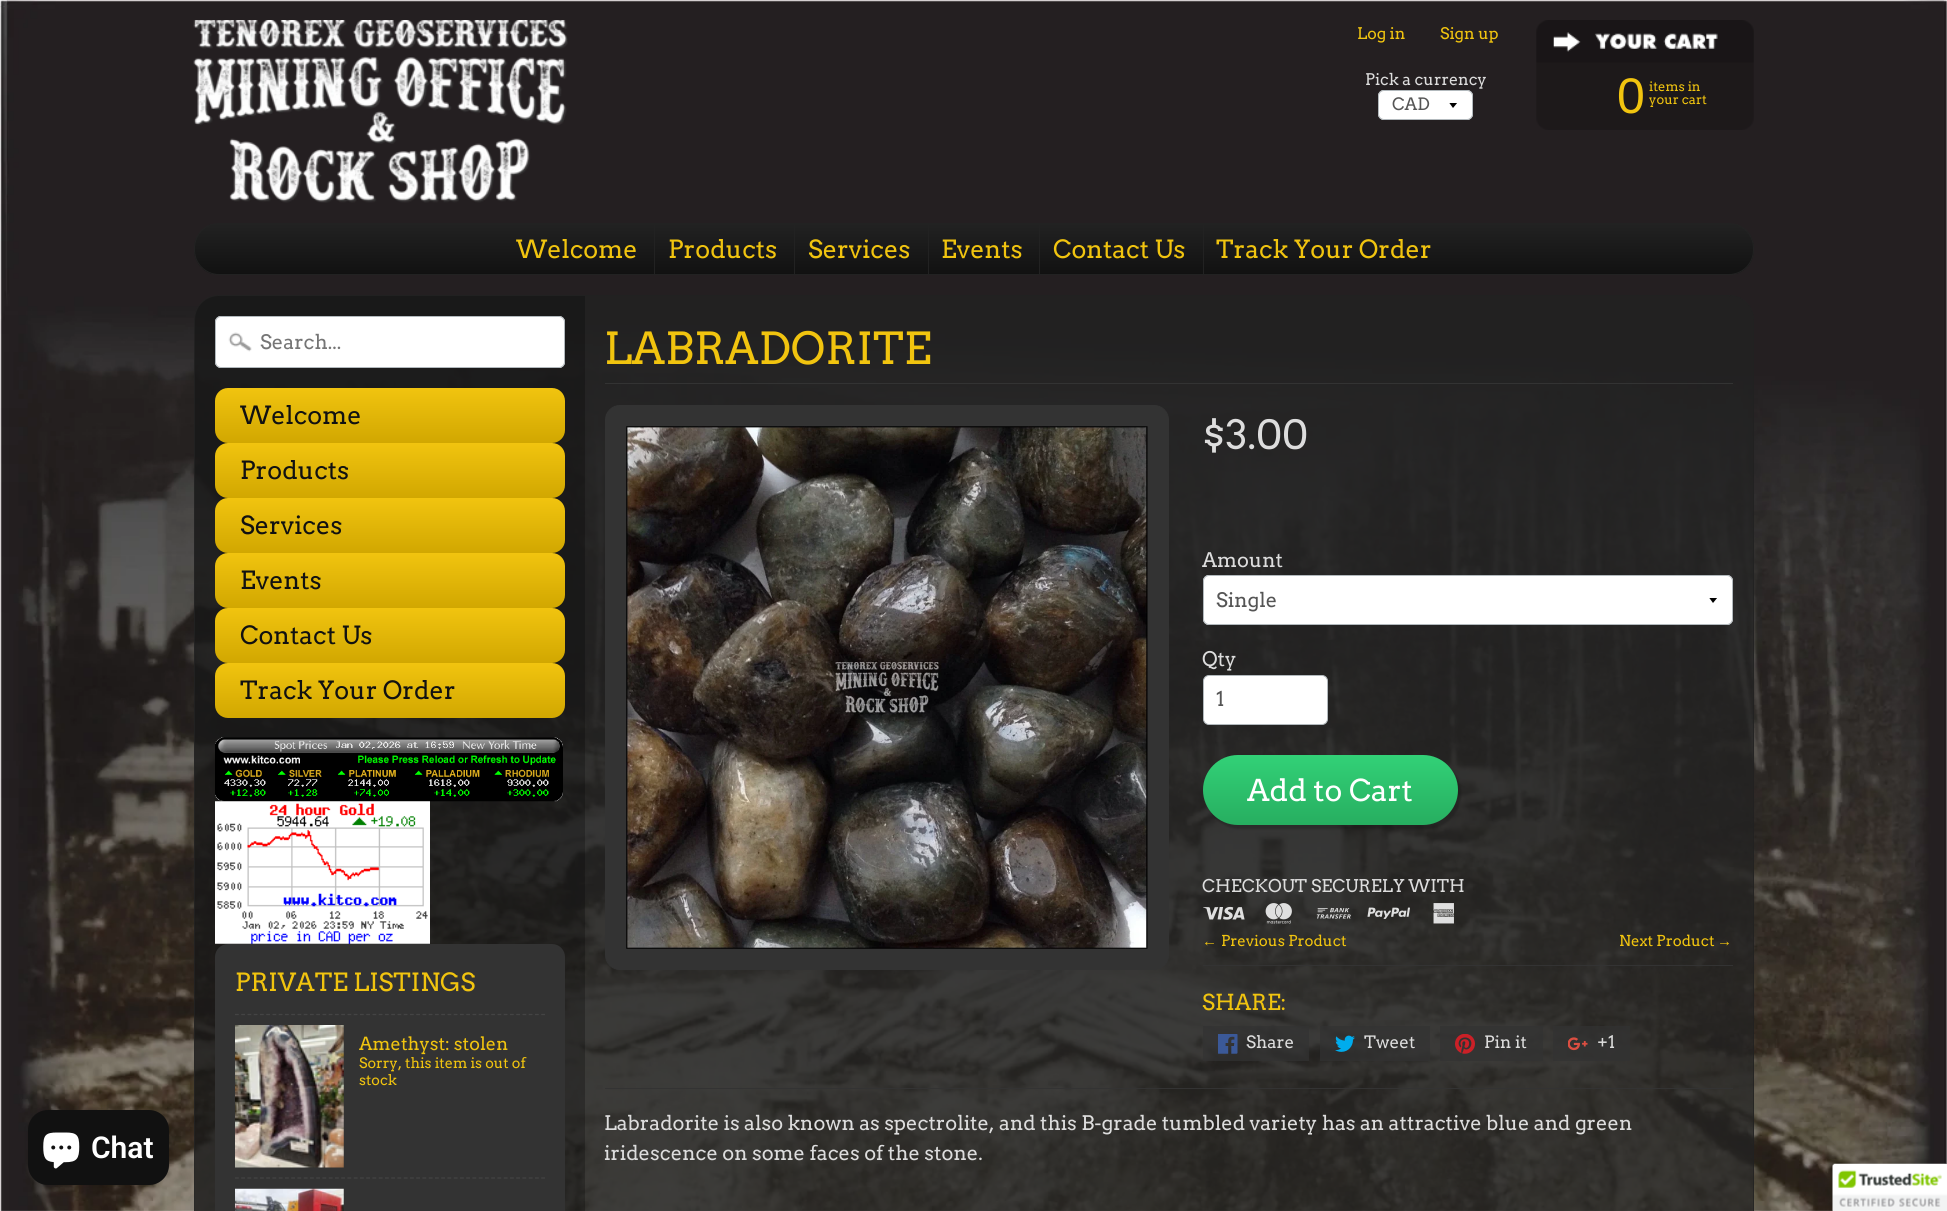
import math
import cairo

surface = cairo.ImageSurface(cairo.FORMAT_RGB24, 1947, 1211)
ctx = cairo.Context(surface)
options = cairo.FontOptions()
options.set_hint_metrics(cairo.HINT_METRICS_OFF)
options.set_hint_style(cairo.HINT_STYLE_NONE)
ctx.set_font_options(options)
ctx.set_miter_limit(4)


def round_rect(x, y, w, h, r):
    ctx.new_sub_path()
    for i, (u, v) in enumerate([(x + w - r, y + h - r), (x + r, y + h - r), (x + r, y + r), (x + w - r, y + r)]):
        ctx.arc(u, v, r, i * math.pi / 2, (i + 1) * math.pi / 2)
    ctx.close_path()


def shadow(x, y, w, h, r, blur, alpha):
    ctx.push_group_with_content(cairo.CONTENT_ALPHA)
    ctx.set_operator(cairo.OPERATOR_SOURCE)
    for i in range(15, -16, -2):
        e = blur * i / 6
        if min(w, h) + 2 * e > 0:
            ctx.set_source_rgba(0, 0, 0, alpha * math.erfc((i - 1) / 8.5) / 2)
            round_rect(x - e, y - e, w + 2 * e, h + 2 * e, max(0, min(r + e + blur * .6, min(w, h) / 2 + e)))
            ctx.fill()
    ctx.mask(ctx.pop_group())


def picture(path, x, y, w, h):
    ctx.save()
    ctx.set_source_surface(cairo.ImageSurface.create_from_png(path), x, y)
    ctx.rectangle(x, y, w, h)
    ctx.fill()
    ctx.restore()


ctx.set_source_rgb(1, 1, 1)
ctx.paint()
picture("img1.png", 0, 0, 1947, 1211)
ctx.set_source_rgb(0, 0, 0)
shadow(28, 1110, 141, 75, 20, 3, 0.15)
ctx.set_source_rgb(0.067, 0.067, 0.067)
round_rect(28, 1110, 141, 75, 20)
ctx.fill()
picture("img2.png", 43, 1132, 37, 37)
ctx.select_font_face("Roboto SemiBold")
ctx.set_font_size(30)
ctx.set_source_rgb(1, 1, 1)
ctx.move_to(91, 1158)
ctx.show_text("Chat")
picture("img3.png", 193, 20, 375, 183)
ctx.select_font_face("Arvo")
ctx.set_font_size(16)
ctx.set_source_rgb(0.945, 0.769, 0.059)
ctx.move_to(1357, 39)
ctx.show_text("Log in")
ctx.move_to(1440, 39)
ctx.show_text("Sign up")
picture("img4.png", 1536, 20, 218, 110)
ctx.select_font_face("Liberation Sans")
ctx.set_font_size(50)
ctx.move_to(1617, 113)
ctx.show_text("0")
ctx.select_font_face("Arvo")
ctx.set_font_size(13)
ctx.move_to(1649, 91)
ctx.show_text("items in")
ctx.move_to(1649, 104)
ctx.show_text("your cart")
ctx.save()
round_rect(194, 223, 1560, 52, 25)
ctx.clip()
gradient = cairo.LinearGradient(974, 224, 974, 274)
gradient.add_color_stop_rgba(0, 0.133, 0.133, 0.133, 1)
gradient.add_color_stop_rgba(1, 0.067, 0.067, 0.067, 1)
ctx.set_source(gradient)
ctx.rectangle(194, 224, 1560, 50)
ctx.fill()
ctx.restore()
round_rect(194.5, 223.5, 1559, 51, 24.5)
ctx.set_source_rgb(0.133, 0.133, 0.133)
ctx.set_line_width(1)
ctx.stroke()
ctx.set_font_size(25)
ctx.set_source_rgb(0.945, 0.769, 0.059)
ctx.move_to(516, 258)
ctx.show_text("Welcome")
ctx.set_source_rgb(0.133, 0.133, 0.133)
ctx.rectangle(654, 224, 1, 50)
ctx.fill()
ctx.set_source_rgb(0.945, 0.769, 0.059)
ctx.move_to(668, 258)
ctx.show_text("Products")
ctx.set_source_rgb(0.133, 0.133, 0.133)
ctx.rectangle(794, 224, 1, 50)
ctx.fill()
ctx.set_source_rgb(0.945, 0.769, 0.059)
ctx.move_to(808, 258)
ctx.show_text("Services")
ctx.set_source_rgb(0.133, 0.133, 0.133)
ctx.rectangle(928, 224, 1, 50)
ctx.fill()
ctx.set_source_rgb(0.945, 0.769, 0.059)
ctx.move_to(941, 258)
ctx.show_text("Events")
ctx.set_source_rgb(0.133, 0.133, 0.133)
ctx.rectangle(1039, 224, 1, 50)
ctx.fill()
ctx.set_source_rgb(0.945, 0.769, 0.059)
ctx.move_to(1053, 258)
ctx.show_text("Contact Us")
ctx.set_source_rgb(0.133, 0.133, 0.133)
ctx.rectangle(1203, 224, 1, 50)
ctx.fill()
ctx.set_source_rgb(0.945, 0.769, 0.059)
ctx.move_to(1216, 258)
ctx.show_text("Track Your Order")
ctx.set_font_size(16)
ctx.set_source_rgb(0.867, 0.867, 0.867)
ctx.move_to(1365, 85)
ctx.show_text("Pick a currency")
ctx.set_source_rgb(1, 1, 1)
round_rect(1378, 90, 95, 30, 6)
ctx.fill()
ctx.save()
ctx.rectangle(1449, 103, 10, 6)
ctx.clip()
ctx.set_source_rgb(0, 0, 0)
ctx.new_path()
ctx.move_to(1449, 102.5)
ctx.line_to(1453, 108)
ctx.line_to(1457.5, 102.5)
ctx.close_path()
ctx.fill()
ctx.restore()
round_rect(1378.5, 90.5, 94, 29, 5.5)
ctx.set_source_rgb(0.698, 0.725, 0.741)
ctx.stroke()
ctx.set_font_size(17)
ctx.set_source_rgb(0.333, 0.333, 0.333)
ctx.move_to(1392, 110)
ctx.show_text("CAD")
ctx.set_source_rgba(0.133, 0.133, 0.133, 0.75)
round_rect(194, 295, 1560, 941, 25)
ctx.fill()
round_rect(194.5, 295.5, 1559, 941, 24.5)
ctx.set_source_rgba(0.133, 0.133, 0.133, 0.7)
ctx.stroke()
ctx.set_source_rgba(0, 0, 0, 0.25)
ctx.new_path()
ctx.move_to(219, 296)
ctx.line_to(585, 296)
ctx.line_to(585, 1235)
ctx.line_to(195, 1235)
ctx.line_to(195, 320)
ctx.curve_to(195, 306.5, 205.5, 296, 219, 296)
ctx.close_path()
ctx.fill()
ctx.set_source_rgb(1, 1, 1)
round_rect(215, 316, 350, 52, 6)
ctx.fill()
picture("img5.png", 228, 332, 24, 20)
round_rect(215.5, 316.5, 349, 51, 5.5)
ctx.set_source_rgb(0.698, 0.725, 0.741)
ctx.stroke()
ctx.set_font_size(20)
ctx.set_source_rgb(0.459, 0.459, 0.459)
ctx.move_to(260, 349)
ctx.show_text("Search...")
gradient = cairo.LinearGradient(390, 388, 390, 443)
gradient.add_color_stop_rgba(0, 0.945, 0.769, 0.059, 1)
gradient.add_color_stop_rgba(1, 0.82, 0.655, 0.004, 1)
ctx.set_source(gradient)
round_rect(215, 388, 350, 55, 13)
ctx.fill()
ctx.set_font_size(25)
ctx.set_source_rgb(0.067, 0.067, 0.067)
ctx.move_to(240, 424)
ctx.show_text("Welcome")
gradient = cairo.LinearGradient(390, 443, 390, 498)
gradient.add_color_stop_rgba(0, 0.945, 0.769, 0.059, 1)
gradient.add_color_stop_rgba(1, 0.82, 0.655, 0.004, 1)
ctx.set_source(gradient)
round_rect(215, 443, 350, 55, 13)
ctx.fill()
ctx.set_source_rgb(0.067, 0.067, 0.067)
ctx.move_to(240, 479)
ctx.show_text("Products")
gradient = cairo.LinearGradient(390, 498, 390, 553)
gradient.add_color_stop_rgba(0, 0.945, 0.769, 0.059, 1)
gradient.add_color_stop_rgba(1, 0.82, 0.655, 0.004, 1)
ctx.set_source(gradient)
round_rect(215, 498, 350, 55, 13)
ctx.fill()
ctx.set_source_rgb(0.067, 0.067, 0.067)
ctx.move_to(240, 534)
ctx.show_text("Services")
gradient = cairo.LinearGradient(390, 553, 390, 608)
gradient.add_color_stop_rgba(0, 0.945, 0.769, 0.059, 1)
gradient.add_color_stop_rgba(1, 0.82, 0.655, 0.004, 1)
ctx.set_source(gradient)
round_rect(215, 553, 350, 55, 13)
ctx.fill()
ctx.set_source_rgb(0.067, 0.067, 0.067)
ctx.move_to(240, 589)
ctx.show_text("Events")
gradient = cairo.LinearGradient(390, 608, 390, 663)
gradient.add_color_stop_rgba(0, 0.945, 0.769, 0.059, 1)
gradient.add_color_stop_rgba(1, 0.82, 0.655, 0.004, 1)
ctx.set_source(gradient)
round_rect(215, 608, 350, 55, 13)
ctx.fill()
ctx.set_source_rgb(0.067, 0.067, 0.067)
ctx.move_to(240, 644)
ctx.show_text("Contact Us")
gradient = cairo.LinearGradient(390, 663, 390, 718)
gradient.add_color_stop_rgba(0, 0.945, 0.769, 0.059, 1)
gradient.add_color_stop_rgba(1, 0.82, 0.655, 0.004, 1)
ctx.set_source(gradient)
round_rect(215, 663, 350, 55, 13)
ctx.fill()
ctx.set_source_rgb(0.067, 0.067, 0.067)
ctx.move_to(240, 699)
ctx.show_text("Track Your Order")
picture("img6.png", 215, 737, 348, 65)
picture("img7.png", 215, 801, 215, 143)
ctx.set_source_rgb(0.2, 0.2, 0.2)
round_rect(215, 944, 350, 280, 13)
ctx.fill()
ctx.set_source_rgb(0.945, 0.769, 0.059)
ctx.move_to(235, 991)
ctx.show_text("PRIVATE LISTINGS")
ctx.new_path()
ctx.move_to(235, 1014.5)
ctx.line_to(545, 1014.5)
ctx.set_source_rgb(0.267, 0.267, 0.267)
ctx.set_line_width(1.2)
ctx.set_dash([3.75, 2.5])
ctx.stroke()
picture("img8.png", 235, 1025, 109, 143)
ctx.set_font_size(18)
ctx.set_source_rgb(0.945, 0.769, 0.059)
ctx.move_to(359, 1050)
ctx.show_text("Amethyst: stolen")
ctx.set_font_size(14.4)
ctx.move_to(359, 1068)
ctx.show_text("Sorry, this item is out of")
ctx.move_to(359, 1085)
ctx.show_text("stock")
ctx.new_path()
ctx.move_to(235, 1178)
ctx.line_to(545, 1178)
ctx.set_source_rgb(0.267, 0.267, 0.267)
ctx.stroke()
picture("img9.png", 235, 1188, 109, 23)
ctx.set_source_rgb(0.2, 0.2, 0.2)
ctx.rectangle(605, 383, 1128, 1)
ctx.fill()
ctx.set_font_size(44)
ctx.set_source_rgb(0.945, 0.769, 0.059)
ctx.move_to(604, 364)
ctx.show_text("LABRADORITE")
ctx.set_source_rgb(0.2, 0.2, 0.2)
round_rect(605.5, 405.5, 563, 564, 14.5)
ctx.fill_preserve()
ctx.set_line_width(1)
ctx.set_dash([])
ctx.stroke()
picture("img10.png", 626, 426, 522, 523)
ctx.set_font_size(40)
ctx.set_source_rgb(0.867, 0.867, 0.867)
ctx.move_to(1202, 449)
ctx.show_text("$3.00")
ctx.set_font_size(20)
ctx.move_to(1202, 567)
ctx.show_text("Amount")
ctx.set_source_rgb(1, 1, 1)
round_rect(1203, 575, 530, 50, 6)
ctx.fill()
ctx.save()
ctx.rectangle(1709, 598, 10, 6)
ctx.clip()
ctx.set_source_rgb(0, 0, 0)
ctx.new_path()
ctx.move_to(1709, 597.5)
ctx.line_to(1713, 603)
ctx.line_to(1717.5, 597.5)
ctx.close_path()
ctx.fill()
ctx.restore()
round_rect(1203.5, 575.5, 529, 49, 5.5)
ctx.set_source_rgb(0.698, 0.725, 0.741)
ctx.stroke()
ctx.set_source_rgb(0.333, 0.333, 0.333)
ctx.move_to(1216, 607)
ctx.show_text("Single")
ctx.set_source_rgb(0.867, 0.867, 0.867)
ctx.move_to(1202, 666)
ctx.show_text("Qty")
ctx.set_source_rgb(1, 1, 1)
round_rect(1203.5, 675.5, 124, 49, 5.5)
ctx.fill_preserve()
ctx.set_source_rgb(0.698, 0.725, 0.741)
ctx.stroke()
ctx.set_source_rgb(0.333, 0.333, 0.333)
ctx.move_to(1216, 706)
ctx.show_text("1")
ctx.set_source_rgb(0, 0, 0)
shadow(1206, 759, 255, 70, 35, 1, 0.2)
gradient = cairo.LinearGradient(1330, 755, 1330, 825)
gradient.add_color_stop_rgba(0, 0.196, 0.82, 0.467, 1)
gradient.add_color_stop_rgba(1, 0.153, 0.682, 0.376, 1)
ctx.set_source(gradient)
round_rect(1203, 755, 255, 70, 35)
ctx.fill()
ctx.set_font_size(30)
ctx.set_source_rgb(1, 1, 1)
ctx.move_to(1247, 801)
ctx.show_text("Add to Cart")
ctx.set_font_size(17.5)
ctx.set_source_rgb(0.867, 0.867, 0.867)
ctx.move_to(1202, 892)
ctx.show_text("CHECKOUT SECURELY WITH")
picture("img11.png", 1203, 906, 42, 14)
picture("img12.png", 1265, 903, 27, 21)
picture("img13.png", 1316, 907, 35, 12)
picture("img14.png", 1367, 907, 43, 12)
picture("img15.png", 1433, 903, 21, 21)
ctx.select_font_face("Liberation Serif")
ctx.set_font_size(15)
ctx.set_source_rgb(0.945, 0.769, 0.059)
ctx.move_to(1202, 946)
ctx.show_text("←")
ctx.select_font_face("Arvo")
ctx.move_to(1221, 946)
ctx.show_text("Previous Product")
ctx.move_to(1619, 946)
ctx.show_text("Next Product")
ctx.select_font_face("Liberation Serif")
ctx.move_to(1717, 946)
ctx.show_text("→")
ctx.set_source_rgb(0.2, 0.2, 0.2)
ctx.rectangle(1203, 965, 530, 1)
ctx.fill()
ctx.select_font_face("Arvo")
ctx.set_font_size(22)
ctx.set_source_rgb(0.945, 0.769, 0.059)
ctx.move_to(1202, 1010)
ctx.show_text("SHARE:")
ctx.set_source_rgba(0.2, 0.2, 0.2, 0.7)
ctx.rectangle(1203, 1026, 106, 35)
ctx.fill()
picture("img16.png", 1218, 1034, 20, 20)
ctx.set_font_size(17)
ctx.set_source_rgb(0.867, 0.867, 0.867)
ctx.move_to(1246, 1048)
ctx.show_text("Share")
ctx.set_source_rgba(0.2, 0.2, 0.2, 0.7)
ctx.rectangle(1320, 1026, 110, 35)
ctx.fill()
picture("img17.png", 1335, 1035, 20, 17)
ctx.set_source_rgb(0.867, 0.867, 0.867)
ctx.move_to(1364, 1048)
ctx.show_text("Tweet")
ctx.set_source_rgba(0.2, 0.2, 0.2, 0.7)
ctx.rectangle(1440, 1026, 103, 35)
ctx.fill()
picture("img18.png", 1455, 1034, 20, 20)
ctx.set_source_rgb(0.867, 0.867, 0.867)
ctx.move_to(1484, 1048)
ctx.show_text("Pin it")
ctx.set_source_rgba(0.2, 0.2, 0.2, 0.7)
ctx.rectangle(1553, 1026, 77, 35)
ctx.fill()
picture("img19.png", 1568, 1037, 20, 14)
ctx.set_source_rgb(0.867, 0.867, 0.867)
ctx.move_to(1597, 1048)
ctx.show_text("+1")
ctx.set_source_rgb(0.2, 0.2, 0.2)
ctx.rectangle(605, 1088, 1128, 1)
ctx.fill()
ctx.set_font_size(20)
ctx.set_source_rgb(0.867, 0.867, 0.867)
ctx.move_to(604, 1130)
ctx.show_text("Labradorite is also known as spectrolite, and this B-grade tumbled variety has an attractive blue and green")
ctx.move_to(604, 1160)
ctx.show_text("iridescence on some faces of the stone.")
ctx.set_source_rgb(0, 0, 0)
shadow(1833, 1164, 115, 47, 2.5, 3, 0.2)
ctx.set_source_rgb(1, 1, 1)
ctx.new_path()
ctx.move_to(1835.5, 1164)
ctx.line_to(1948, 1164)
ctx.line_to(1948, 1211)
ctx.line_to(1833, 1211)
ctx.line_to(1833, 1166.5)
ctx.curve_to(1833, 1165, 1834, 1164, 1835.5, 1164)
ctx.close_path()
ctx.fill()
picture("img20.png", 1832, 1163, 115, 48)
surface.write_to_png("page.png")
